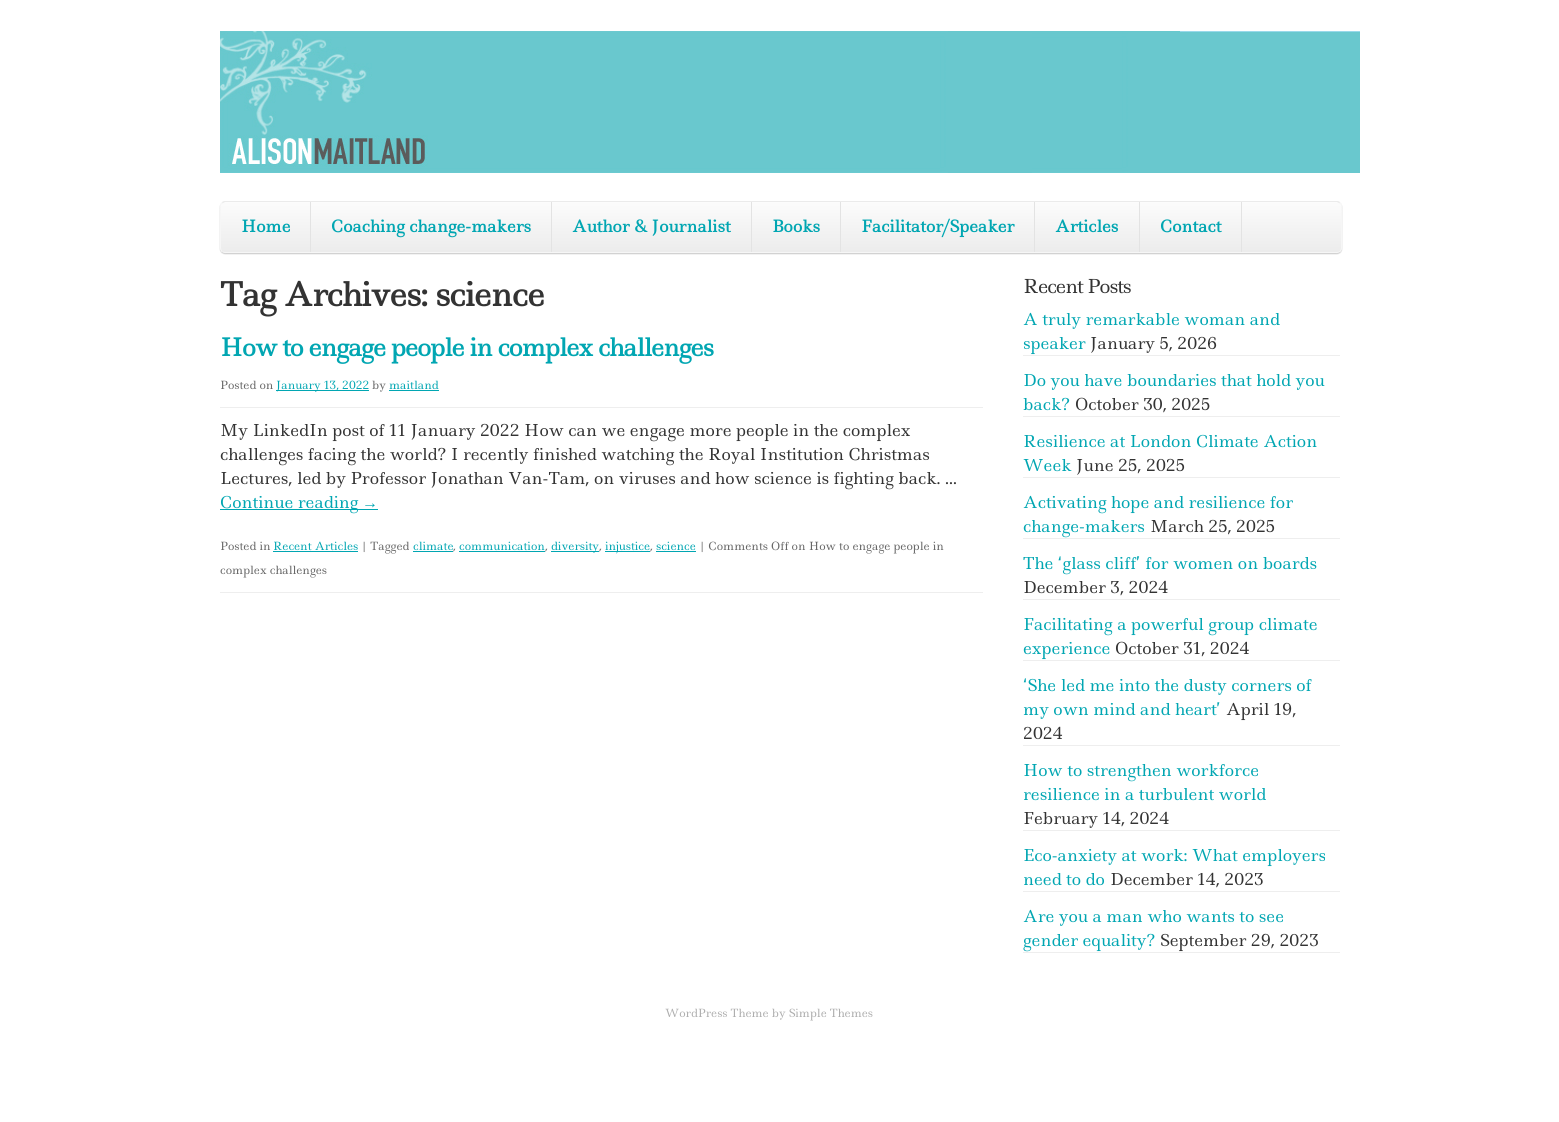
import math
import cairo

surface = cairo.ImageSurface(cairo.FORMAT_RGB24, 1559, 1122)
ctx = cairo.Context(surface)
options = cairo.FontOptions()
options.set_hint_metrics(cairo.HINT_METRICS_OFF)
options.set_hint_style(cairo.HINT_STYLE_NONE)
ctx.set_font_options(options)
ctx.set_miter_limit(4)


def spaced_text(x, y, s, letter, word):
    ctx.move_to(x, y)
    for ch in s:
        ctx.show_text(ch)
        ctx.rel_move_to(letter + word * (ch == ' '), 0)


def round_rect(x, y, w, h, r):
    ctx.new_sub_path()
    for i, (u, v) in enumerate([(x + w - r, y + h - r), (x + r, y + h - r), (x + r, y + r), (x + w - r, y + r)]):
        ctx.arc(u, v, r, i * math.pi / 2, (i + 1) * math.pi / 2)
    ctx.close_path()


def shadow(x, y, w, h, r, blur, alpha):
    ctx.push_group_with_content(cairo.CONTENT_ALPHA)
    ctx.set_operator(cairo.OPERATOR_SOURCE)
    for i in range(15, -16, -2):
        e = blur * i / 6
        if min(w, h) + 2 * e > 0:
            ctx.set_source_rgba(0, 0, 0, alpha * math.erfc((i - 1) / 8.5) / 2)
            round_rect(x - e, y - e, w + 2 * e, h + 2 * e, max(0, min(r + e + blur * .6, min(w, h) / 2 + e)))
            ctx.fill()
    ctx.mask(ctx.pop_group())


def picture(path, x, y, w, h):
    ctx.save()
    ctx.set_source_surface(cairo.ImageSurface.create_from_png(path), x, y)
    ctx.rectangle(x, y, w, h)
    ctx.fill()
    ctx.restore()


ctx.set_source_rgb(1, 1, 1)
ctx.paint()
picture("img1.png", 220, 31, 1140, 142)
ctx.set_source_rgb(0, 0, 0)
shadow(220, 202, 1122, 52, 5, 0.5, 0.2)
ctx.save()
round_rect(220, 201, 1122, 52, 5)
ctx.clip()
gradient = cairo.LinearGradient(781, 152, 781, 202)
gradient.add_color_stop_rgba(0, 0.988, 0.988, 0.988, 1)
gradient.add_color_stop_rgba(1, 0.925, 0.925, 0.925, 1)
ctx.set_source(gradient)
ctx.rectangle(220, 201, 1122, 1)
ctx.fill()
gradient = cairo.LinearGradient(781, 202, 781, 252)
gradient.add_color_stop_rgba(0, 0.988, 0.988, 0.988, 1)
gradient.add_color_stop_rgba(1, 0.925, 0.925, 0.925, 1)
ctx.set_source(gradient)
ctx.rectangle(220, 202, 1122, 50)
ctx.fill()
ctx.restore()
ctx.new_path()
ctx.move_to(222, 203)
ctx.line_to(225, 201.5)
ctx.line_to(1337, 201.5)
ctx.line_to(1340, 203)
ctx.set_source_rgb(0.918, 0.918, 0.918)
ctx.set_line_width(1)
ctx.stroke()
ctx.new_path()
ctx.move_to(1340, 203)
ctx.curve_to(1342.5, 205, 1341.5, 210.5, 1341.5, 213)
ctx.line_to(1341.5, 248)
ctx.curve_to(1341.5, 250.5, 1339.5, 252.5, 1337, 252.5)
ctx.line_to(225, 252.5)
ctx.curve_to(222.5, 252.5, 220.5, 250.5, 220.5, 248)
ctx.line_to(220.5, 213)
ctx.curve_to(220.5, 210.5, 219.5, 205, 222, 203)
ctx.set_source_rgb(0.961, 0.961, 0.961)
ctx.stroke()
ctx.set_source_rgb(0.89, 0.89, 0.89)
ctx.rectangle(310, 202, 1, 50)
ctx.fill()
ctx.set_source_rgb(0.933, 0.933, 0.933)
ctx.rectangle(221, 251, 2, 1)
ctx.fill()
ctx.select_font_face("Ledger", cairo.FONT_SLANT_NORMAL, cairo.FONT_WEIGHT_BOLD)
ctx.set_font_size(16)
ctx.set_source_rgb(0.004, 0.651, 0.698)
ctx.move_to(241, 232)
ctx.show_text("Home")
ctx.set_source_rgb(0.89, 0.89, 0.89)
ctx.rectangle(551, 202, 1, 50)
ctx.fill()
ctx.set_source_rgb(0.004, 0.651, 0.698)
ctx.move_to(331, 232)
ctx.show_text("Coaching change-makers")
ctx.set_source_rgb(0.89, 0.89, 0.89)
ctx.rectangle(751, 202, 1, 50)
ctx.fill()
ctx.set_source_rgb(0.004, 0.651, 0.698)
ctx.move_to(572, 232)
ctx.show_text("Author & Journalist")
ctx.set_source_rgb(0.89, 0.89, 0.89)
ctx.rectangle(840, 202, 1, 50)
ctx.fill()
ctx.set_source_rgb(0.004, 0.651, 0.698)
ctx.move_to(772, 232)
ctx.show_text("Books")
ctx.set_source_rgb(0.89, 0.89, 0.89)
ctx.rectangle(1034, 202, 1, 50)
ctx.fill()
ctx.set_source_rgb(0.004, 0.651, 0.698)
ctx.move_to(861, 232)
ctx.show_text("Facilitator/Speaker")
ctx.set_source_rgb(0.89, 0.89, 0.89)
ctx.rectangle(1139, 202, 1, 50)
ctx.fill()
ctx.set_source_rgb(0.004, 0.651, 0.698)
ctx.move_to(1055, 232)
ctx.show_text("Articles")
ctx.set_source_rgb(0.89, 0.89, 0.89)
ctx.rectangle(1241, 202, 1, 50)
ctx.fill()
ctx.set_source_rgb(0.004, 0.651, 0.698)
ctx.move_to(1160, 232)
ctx.show_text("Contact")
ctx.set_font_size(32)
ctx.set_source_rgb(0.2, 0.2, 0.2)
spaced_text(220, 306, "Tag Archives: science", -1, 0)
ctx.set_font_size(24)
ctx.set_source_rgb(0.004, 0.651, 0.698)
spaced_text(220, 356, "How to engage people in complex challenges", -1, 0)
ctx.set_source_rgb(0.933, 0.933, 0.933)
ctx.rectangle(220, 407, 763, 1)
ctx.fill()
ctx.select_font_face("Ledger")
ctx.set_font_size(11)
ctx.set_source_rgb(0.4, 0.4, 0.4)
ctx.move_to(220, 389)
ctx.show_text("Posted on")
ctx.set_source_rgb(0.004, 0.651, 0.698)
ctx.rectangle(276, 390, 93, 1)
ctx.fill()
ctx.move_to(276, 389)
ctx.show_text("January 13, 2022")
ctx.set_source_rgb(0.4, 0.4, 0.4)
ctx.move_to(372, 389)
ctx.show_text("by")
ctx.set_source_rgb(0.004, 0.651, 0.698)
ctx.move_to(389, 389)
ctx.show_text("maitland")
ctx.rectangle(389, 390, 50, 1)
ctx.fill()
ctx.set_font_size(16)
ctx.set_source_rgb(0.2, 0.2, 0.2)
ctx.move_to(220, 436)
ctx.show_text("My LinkedIn post of 11 January 2022 How can we engage more people in the complex")
ctx.move_to(220, 460)
ctx.show_text("challenges facing the world? I recently finished watching the Royal Institution Christmas")
ctx.move_to(220, 484)
ctx.show_text("Lectures, led by Professor Jonathan Van-Tam, on viruses and how science is fighting back. …")
ctx.set_source_rgb(0.004, 0.651, 0.698)
ctx.rectangle(220, 509, 158, 1)
ctx.fill()
ctx.move_to(220, 508)
ctx.show_text("Continue reading")
ctx.select_font_face("Liberation Serif")
ctx.move_to(362, 508)
ctx.show_text("→")
ctx.set_source_rgb(0.933, 0.933, 0.933)
ctx.rectangle(220, 592, 763, 1)
ctx.fill()
ctx.select_font_face("Ledger")
ctx.set_font_size(11)
ctx.set_source_rgb(0.4, 0.4, 0.4)
ctx.move_to(220, 550)
ctx.show_text("Posted in")
ctx.set_source_rgb(0.004, 0.651, 0.698)
ctx.move_to(273, 550)
ctx.show_text("Recent Articles")
ctx.rectangle(273, 551, 85, 1)
ctx.fill()
ctx.set_source_rgb(0.4, 0.4, 0.4)
ctx.move_to(361, 550)
ctx.show_text("| Tagged")
ctx.set_source_rgb(0.004, 0.651, 0.698)
ctx.move_to(413, 550)
ctx.show_text("climate")
ctx.set_source_rgb(0.4, 0.4, 0.4)
ctx.move_to(453, 550)
ctx.show_text(",")
ctx.set_source_rgb(0.004, 0.651, 0.698)
ctx.rectangle(413, 551, 40, 1)
ctx.fill()
ctx.move_to(459, 550)
ctx.show_text("communication")
ctx.set_source_rgb(0.4, 0.4, 0.4)
ctx.move_to(545, 550)
ctx.show_text(",")
ctx.set_source_rgb(0.004, 0.651, 0.698)
ctx.rectangle(459, 551, 86, 1)
ctx.fill()
ctx.rectangle(551, 551, 48, 1)
ctx.fill()
ctx.move_to(551, 550)
ctx.show_text("diversity")
ctx.set_source_rgb(0.4, 0.4, 0.4)
ctx.move_to(599, 550)
ctx.show_text(",")
ctx.set_source_rgb(0.004, 0.651, 0.698)
ctx.rectangle(605, 551, 45, 1)
ctx.fill()
ctx.move_to(605, 550)
ctx.show_text("injustice")
ctx.set_source_rgb(0.4, 0.4, 0.4)
ctx.move_to(650, 550)
ctx.show_text(",")
ctx.set_source_rgb(0.004, 0.651, 0.698)
ctx.rectangle(656, 551, 40, 1)
ctx.fill()
ctx.move_to(656, 550)
ctx.show_text("science")
ctx.set_source_rgb(0.4, 0.4, 0.4)
ctx.move_to(699, 550)
ctx.show_text("| Comments Off on How to engage people in")
ctx.move_to(220, 574)
ctx.show_text("complex challenges")
ctx.set_font_size(18.75)
ctx.set_source_rgb(0.2, 0.2, 0.2)
spaced_text(1023, 293, "Recent Posts", -1, 0)
ctx.set_source_rgb(0.933, 0.933, 0.933)
ctx.rectangle(1023, 355, 317, 1)
ctx.fill()
ctx.set_font_size(16)
ctx.set_source_rgb(0.004, 0.651, 0.698)
ctx.move_to(1023, 325)
ctx.show_text("A truly remarkable woman and")
ctx.move_to(1023, 349)
ctx.show_text("speaker")
ctx.set_source_rgb(0.2, 0.2, 0.2)
ctx.move_to(1090, 349)
ctx.show_text("January 5, 2026")
ctx.set_source_rgb(0.933, 0.933, 0.933)
ctx.rectangle(1023, 416, 317, 1)
ctx.fill()
ctx.set_source_rgb(0.004, 0.651, 0.698)
ctx.move_to(1023, 386)
ctx.show_text("Do you have boundaries that hold you")
ctx.move_to(1023, 410)
ctx.show_text("back?")
ctx.set_source_rgb(0.2, 0.2, 0.2)
ctx.move_to(1075, 410)
ctx.show_text("October 30, 2025")
ctx.set_source_rgb(0.933, 0.933, 0.933)
ctx.rectangle(1023, 477, 317, 1)
ctx.fill()
ctx.set_source_rgb(0.004, 0.651, 0.698)
ctx.move_to(1023, 447)
ctx.show_text("Resilience at London Climate Action")
ctx.move_to(1023, 471)
ctx.show_text("Week")
ctx.set_source_rgb(0.2, 0.2, 0.2)
ctx.move_to(1076, 471)
ctx.show_text("June 25, 2025")
ctx.set_source_rgb(0.933, 0.933, 0.933)
ctx.rectangle(1023, 538, 317, 1)
ctx.fill()
ctx.set_source_rgb(0.004, 0.651, 0.698)
ctx.move_to(1023, 508)
ctx.show_text("Activating hope and resilience for")
ctx.move_to(1023, 532)
ctx.show_text("change-makers")
ctx.set_source_rgb(0.2, 0.2, 0.2)
ctx.move_to(1150, 532)
ctx.show_text("March 25, 2025")
ctx.set_source_rgb(0.933, 0.933, 0.933)
ctx.rectangle(1023, 599, 317, 1)
ctx.fill()
ctx.set_source_rgb(0.004, 0.651, 0.698)
ctx.move_to(1023, 569)
ctx.show_text("The ‘glass cliff’ for women on boards")
ctx.set_source_rgb(0.2, 0.2, 0.2)
ctx.move_to(1023, 593)
ctx.show_text("December 3, 2024")
ctx.set_source_rgb(0.933, 0.933, 0.933)
ctx.rectangle(1023, 660, 317, 1)
ctx.fill()
ctx.set_source_rgb(0.004, 0.651, 0.698)
ctx.move_to(1023, 630)
ctx.show_text("Facilitating a powerful group climate")
ctx.move_to(1023, 654)
ctx.show_text("experience")
ctx.set_source_rgb(0.2, 0.2, 0.2)
ctx.move_to(1115, 654)
ctx.show_text("October 31, 2024")
ctx.set_source_rgb(0.933, 0.933, 0.933)
ctx.rectangle(1023, 745, 317, 1)
ctx.fill()
ctx.set_source_rgb(0.004, 0.651, 0.698)
ctx.move_to(1023, 691)
ctx.show_text("‘She led me into the dusty corners of")
ctx.move_to(1023, 715)
ctx.show_text("my own mind and heart’")
ctx.set_source_rgb(0.2, 0.2, 0.2)
ctx.move_to(1226, 715)
ctx.show_text("April 19,")
ctx.move_to(1023, 739)
ctx.show_text("2024")
ctx.set_source_rgb(0.933, 0.933, 0.933)
ctx.rectangle(1023, 830, 317, 1)
ctx.fill()
ctx.set_source_rgb(0.004, 0.651, 0.698)
ctx.move_to(1023, 776)
ctx.show_text("How to strengthen workforce")
ctx.move_to(1023, 800)
ctx.show_text("resilience in a turbulent world")
ctx.set_source_rgb(0.2, 0.2, 0.2)
ctx.move_to(1023, 824)
ctx.show_text("February 14, 2024")
ctx.set_source_rgb(0.933, 0.933, 0.933)
ctx.rectangle(1023, 891, 317, 1)
ctx.fill()
ctx.set_source_rgb(0.004, 0.651, 0.698)
ctx.move_to(1023, 861)
ctx.show_text("Eco-anxiety at work: What employers")
ctx.move_to(1023, 885)
ctx.show_text("need to do")
ctx.set_source_rgb(0.2, 0.2, 0.2)
ctx.move_to(1110, 885)
ctx.show_text("December 14, 2023")
ctx.set_source_rgb(0.933, 0.933, 0.933)
ctx.rectangle(1023, 952, 317, 1)
ctx.fill()
ctx.set_source_rgb(0.004, 0.651, 0.698)
ctx.move_to(1023, 922)
ctx.show_text("Are you a man who wants to see")
ctx.move_to(1023, 946)
ctx.show_text("gender equality?")
ctx.set_source_rgb(0.2, 0.2, 0.2)
ctx.move_to(1160, 946)
ctx.show_text("September 29, 2023")
ctx.set_font_size(11)
ctx.set_source_rgb(0.682, 0.682, 0.682)
ctx.move_to(665, 1017)
ctx.show_text("WordPress Theme by Simple Themes")
surface.write_to_png("page.png")
